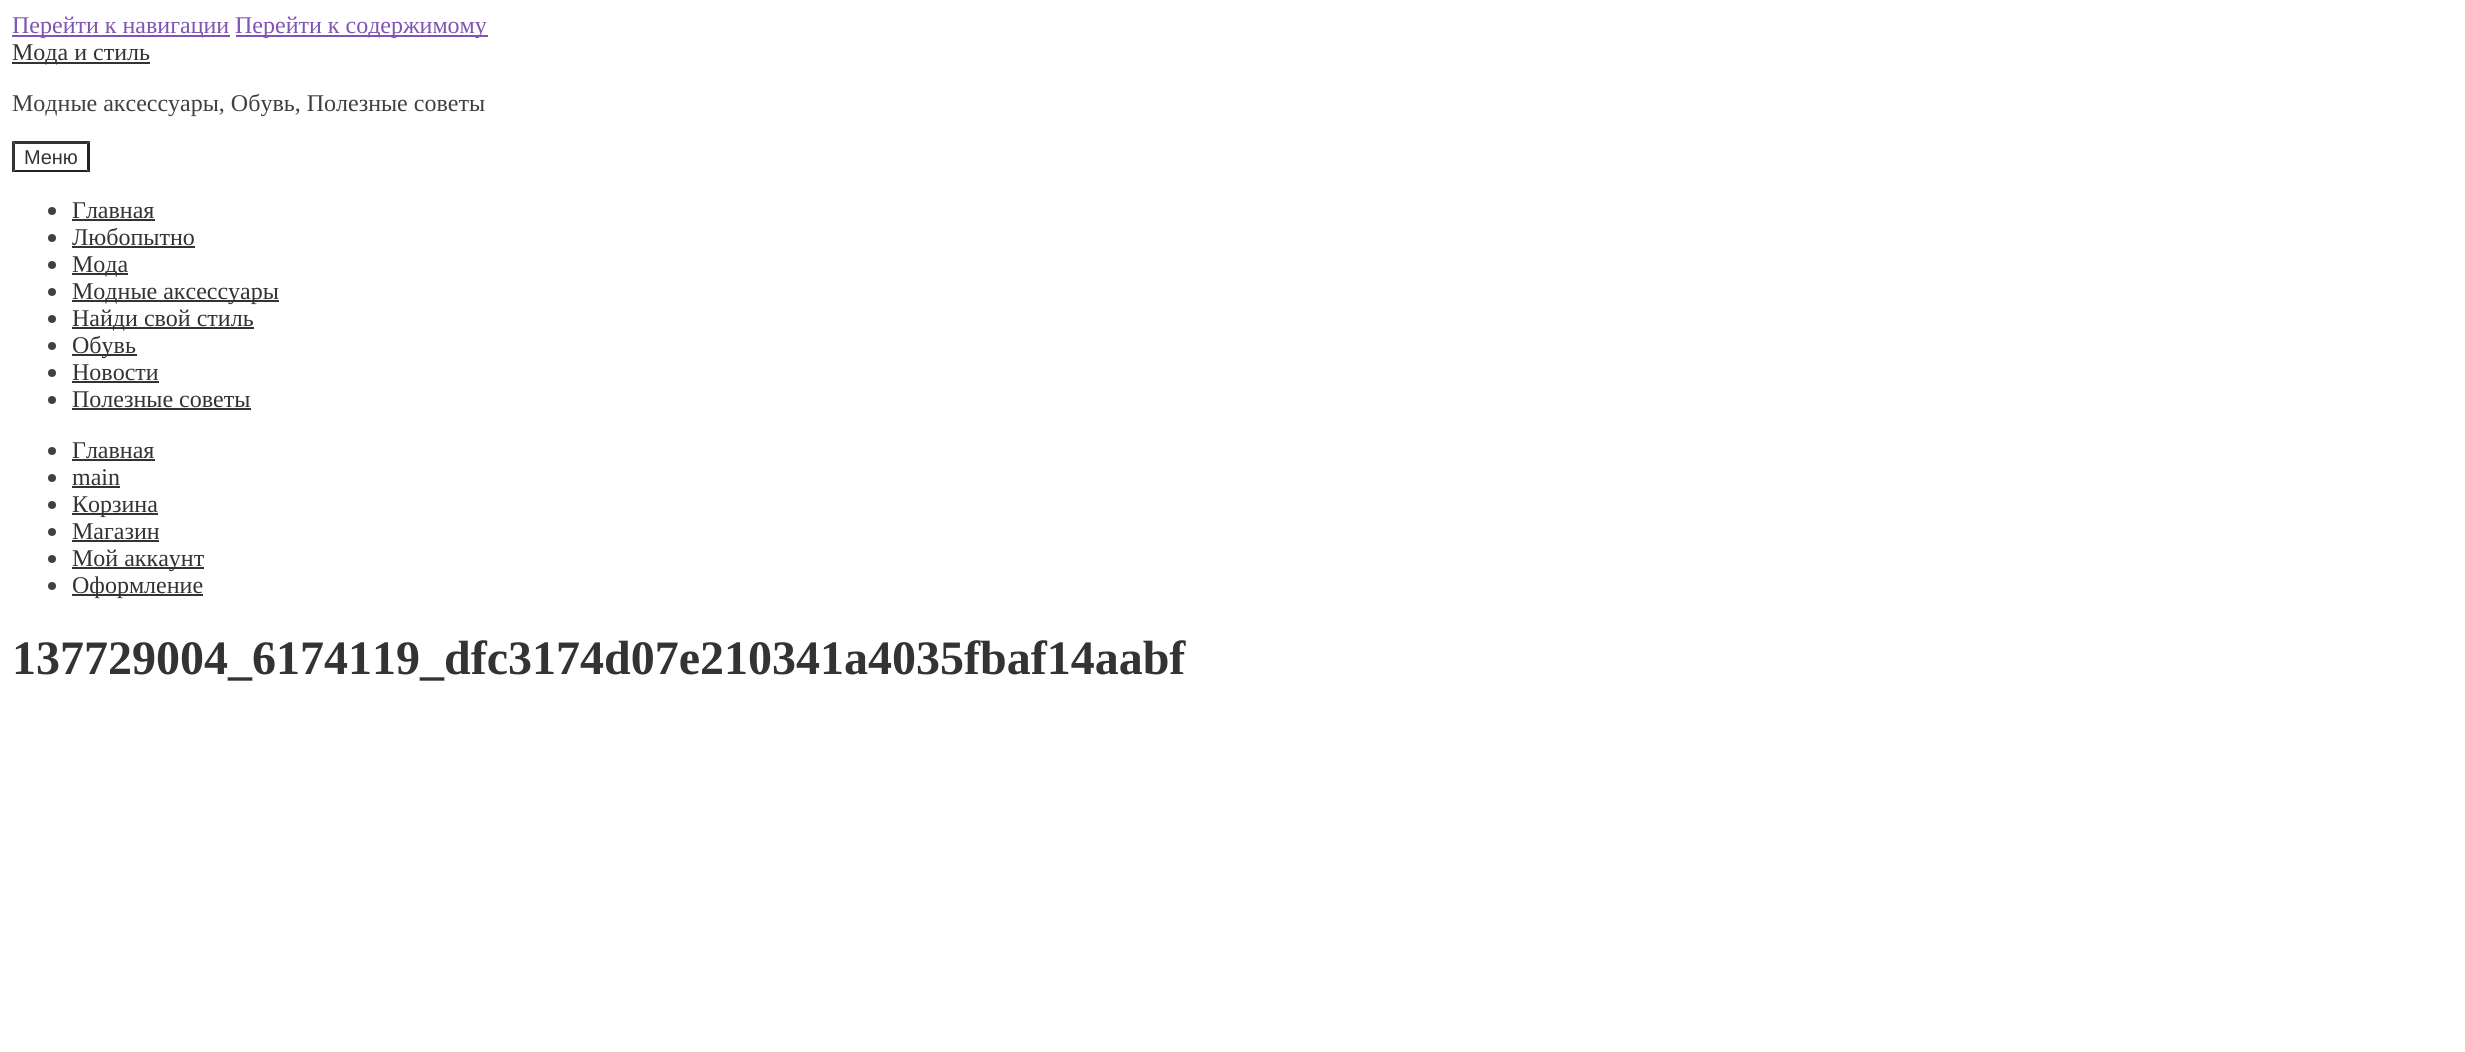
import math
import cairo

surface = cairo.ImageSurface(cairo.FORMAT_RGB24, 2465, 1052)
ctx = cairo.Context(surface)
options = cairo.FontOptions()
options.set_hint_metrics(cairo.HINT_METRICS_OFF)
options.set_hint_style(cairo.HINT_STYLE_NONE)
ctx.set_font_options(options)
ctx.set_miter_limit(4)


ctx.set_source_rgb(1, 1, 1)
ctx.paint()
ctx.set_source_rgb(0.498, 0.329, 0.702)
ctx.rectangle(12, 35, 218, 2)
ctx.fill()
ctx.select_font_face("Liberation Serif")
ctx.set_font_size(24)
ctx.move_to(12, 33)
ctx.show_text("Перейти к навигации")
ctx.rectangle(236, 35, 252, 2)
ctx.fill()
ctx.move_to(235, 33)
ctx.show_text("Перейти к содержимому")
ctx.set_source_rgb(0.2, 0.2, 0.2)
ctx.rectangle(12, 62, 138, 2)
ctx.fill()
ctx.move_to(12, 60)
ctx.show_text("Мода и стиль")
ctx.set_source_rgb(0.251, 0.251, 0.251)
ctx.move_to(12, 111)
ctx.show_text("Модные аксессуары, Обувь, Полезные советы")
ctx.set_source_rgb(0.2, 0.2, 0.2)
ctx.new_path()
ctx.move_to(12, 141)
ctx.line_to(90, 141)
ctx.line_to(87, 144)
ctx.line_to(15, 144)
ctx.close_path()
ctx.fill()
ctx.set_source_rgb(0.133, 0.133, 0.133)
ctx.new_path()
ctx.move_to(90, 141)
ctx.line_to(90, 172.5)
ctx.line_to(87, 169.5)
ctx.line_to(87, 144)
ctx.close_path()
ctx.fill()
ctx.new_path()
ctx.move_to(90, 172)
ctx.line_to(12, 172)
ctx.line_to(15, 170)
ctx.line_to(87, 170)
ctx.close_path()
ctx.fill()
ctx.set_source_rgb(0.2, 0.2, 0.2)
ctx.new_path()
ctx.move_to(12, 172.5)
ctx.line_to(12, 141)
ctx.line_to(15, 144)
ctx.line_to(15, 169.5)
ctx.close_path()
ctx.fill()
ctx.select_font_face("Liberation Sans")
ctx.set_font_size(20)
ctx.move_to(24, 164)
ctx.show_text("Меню")
ctx.set_source_rgb(0.251, 0.251, 0.251)
ctx.new_path()
ctx.arc(52, 211, 4, 0, 2 * math.pi)
ctx.fill()
ctx.select_font_face("Liberation Serif")
ctx.set_font_size(24)
ctx.set_source_rgb(0.2, 0.2, 0.2)
ctx.move_to(72, 218)
ctx.show_text("Главная")
ctx.rectangle(72, 219, 83, 2)
ctx.fill()
ctx.set_source_rgb(0.251, 0.251, 0.251)
ctx.arc(52, 238, 4, 0, 2 * math.pi)
ctx.fill()
ctx.set_source_rgb(0.2, 0.2, 0.2)
ctx.move_to(72, 245)
ctx.show_text("Любопытно")
ctx.rectangle(72, 246, 123, 2)
ctx.fill()
ctx.set_source_rgb(0.251, 0.251, 0.251)
ctx.arc(52, 265, 4, 0, 2 * math.pi)
ctx.fill()
ctx.set_source_rgb(0.2, 0.2, 0.2)
ctx.rectangle(72, 273, 56, 2)
ctx.fill()
ctx.move_to(72, 272)
ctx.show_text("Мода")
ctx.set_source_rgb(0.251, 0.251, 0.251)
ctx.new_path()
ctx.arc(52, 292, 4, 0, 2 * math.pi)
ctx.fill()
ctx.set_source_rgb(0.2, 0.2, 0.2)
ctx.rectangle(72, 300, 207, 2)
ctx.fill()
ctx.move_to(72, 299)
ctx.show_text("Модные аксессуары")
ctx.set_source_rgb(0.251, 0.251, 0.251)
ctx.new_path()
ctx.arc(52, 319, 4, 0, 2 * math.pi)
ctx.fill()
ctx.set_source_rgb(0.2, 0.2, 0.2)
ctx.rectangle(72, 327, 182, 2)
ctx.fill()
ctx.move_to(72, 326)
ctx.show_text("Найди свой стиль")
ctx.set_source_rgb(0.251, 0.251, 0.251)
ctx.new_path()
ctx.arc(52, 346, 4, 0, 2 * math.pi)
ctx.fill()
ctx.set_source_rgb(0.2, 0.2, 0.2)
ctx.rectangle(72, 354, 65, 2)
ctx.fill()
ctx.move_to(72, 353)
ctx.show_text("Обувь")
ctx.set_source_rgb(0.251, 0.251, 0.251)
ctx.new_path()
ctx.arc(52, 373, 4, 0, 2 * math.pi)
ctx.fill()
ctx.set_source_rgb(0.2, 0.2, 0.2)
ctx.move_to(72, 380)
ctx.show_text("Новости")
ctx.rectangle(72, 381, 87, 2)
ctx.fill()
ctx.set_source_rgb(0.251, 0.251, 0.251)
ctx.arc(52, 400, 4, 0, 2 * math.pi)
ctx.fill()
ctx.set_source_rgb(0.2, 0.2, 0.2)
ctx.move_to(72, 407)
ctx.show_text("Полезные советы")
ctx.rectangle(72, 408, 179, 2)
ctx.fill()
ctx.set_source_rgb(0.251, 0.251, 0.251)
ctx.arc(52, 451, 4, 0, 2 * math.pi)
ctx.fill()
ctx.set_source_rgb(0.2, 0.2, 0.2)
ctx.move_to(72, 458)
ctx.show_text("Главная")
ctx.rectangle(72, 459, 83, 2)
ctx.fill()
ctx.set_source_rgb(0.251, 0.251, 0.251)
ctx.arc(52, 478, 4, 0, 2 * math.pi)
ctx.fill()
ctx.set_source_rgb(0.2, 0.2, 0.2)
ctx.move_to(72, 485)
ctx.show_text("main")
ctx.rectangle(72, 486, 48, 2)
ctx.fill()
ctx.set_source_rgb(0.251, 0.251, 0.251)
ctx.arc(52, 505, 4, 0, 2 * math.pi)
ctx.fill()
ctx.set_source_rgb(0.2, 0.2, 0.2)
ctx.rectangle(72, 513, 86, 2)
ctx.fill()
ctx.move_to(72, 512)
ctx.show_text("Корзина")
ctx.set_source_rgb(0.251, 0.251, 0.251)
ctx.new_path()
ctx.arc(52, 532, 4, 0, 2 * math.pi)
ctx.fill()
ctx.set_source_rgb(0.2, 0.2, 0.2)
ctx.move_to(72, 539)
ctx.show_text("Магазин")
ctx.rectangle(72, 540, 87, 2)
ctx.fill()
ctx.set_source_rgb(0.251, 0.251, 0.251)
ctx.arc(52, 559, 4, 0, 2 * math.pi)
ctx.fill()
ctx.set_source_rgb(0.2, 0.2, 0.2)
ctx.rectangle(72, 567, 132, 2)
ctx.fill()
ctx.move_to(72, 566)
ctx.show_text("Мой аккаунт")
ctx.set_source_rgb(0.251, 0.251, 0.251)
ctx.new_path()
ctx.arc(52, 586, 4, 0, 2 * math.pi)
ctx.fill()
ctx.set_source_rgb(0.2, 0.2, 0.2)
ctx.rectangle(72, 594, 131, 2)
ctx.fill()
ctx.move_to(72, 593)
ctx.show_text("Оформление")
ctx.select_font_face("Liberation Serif", cairo.FONT_SLANT_NORMAL, cairo.FONT_WEIGHT_BOLD)
ctx.set_font_size(48)
ctx.move_to(12, 674)
ctx.show_text("137729004_6174119_dfc3174d07e210341a4035fbaf14aabf")
surface.write_to_png("page.png")
